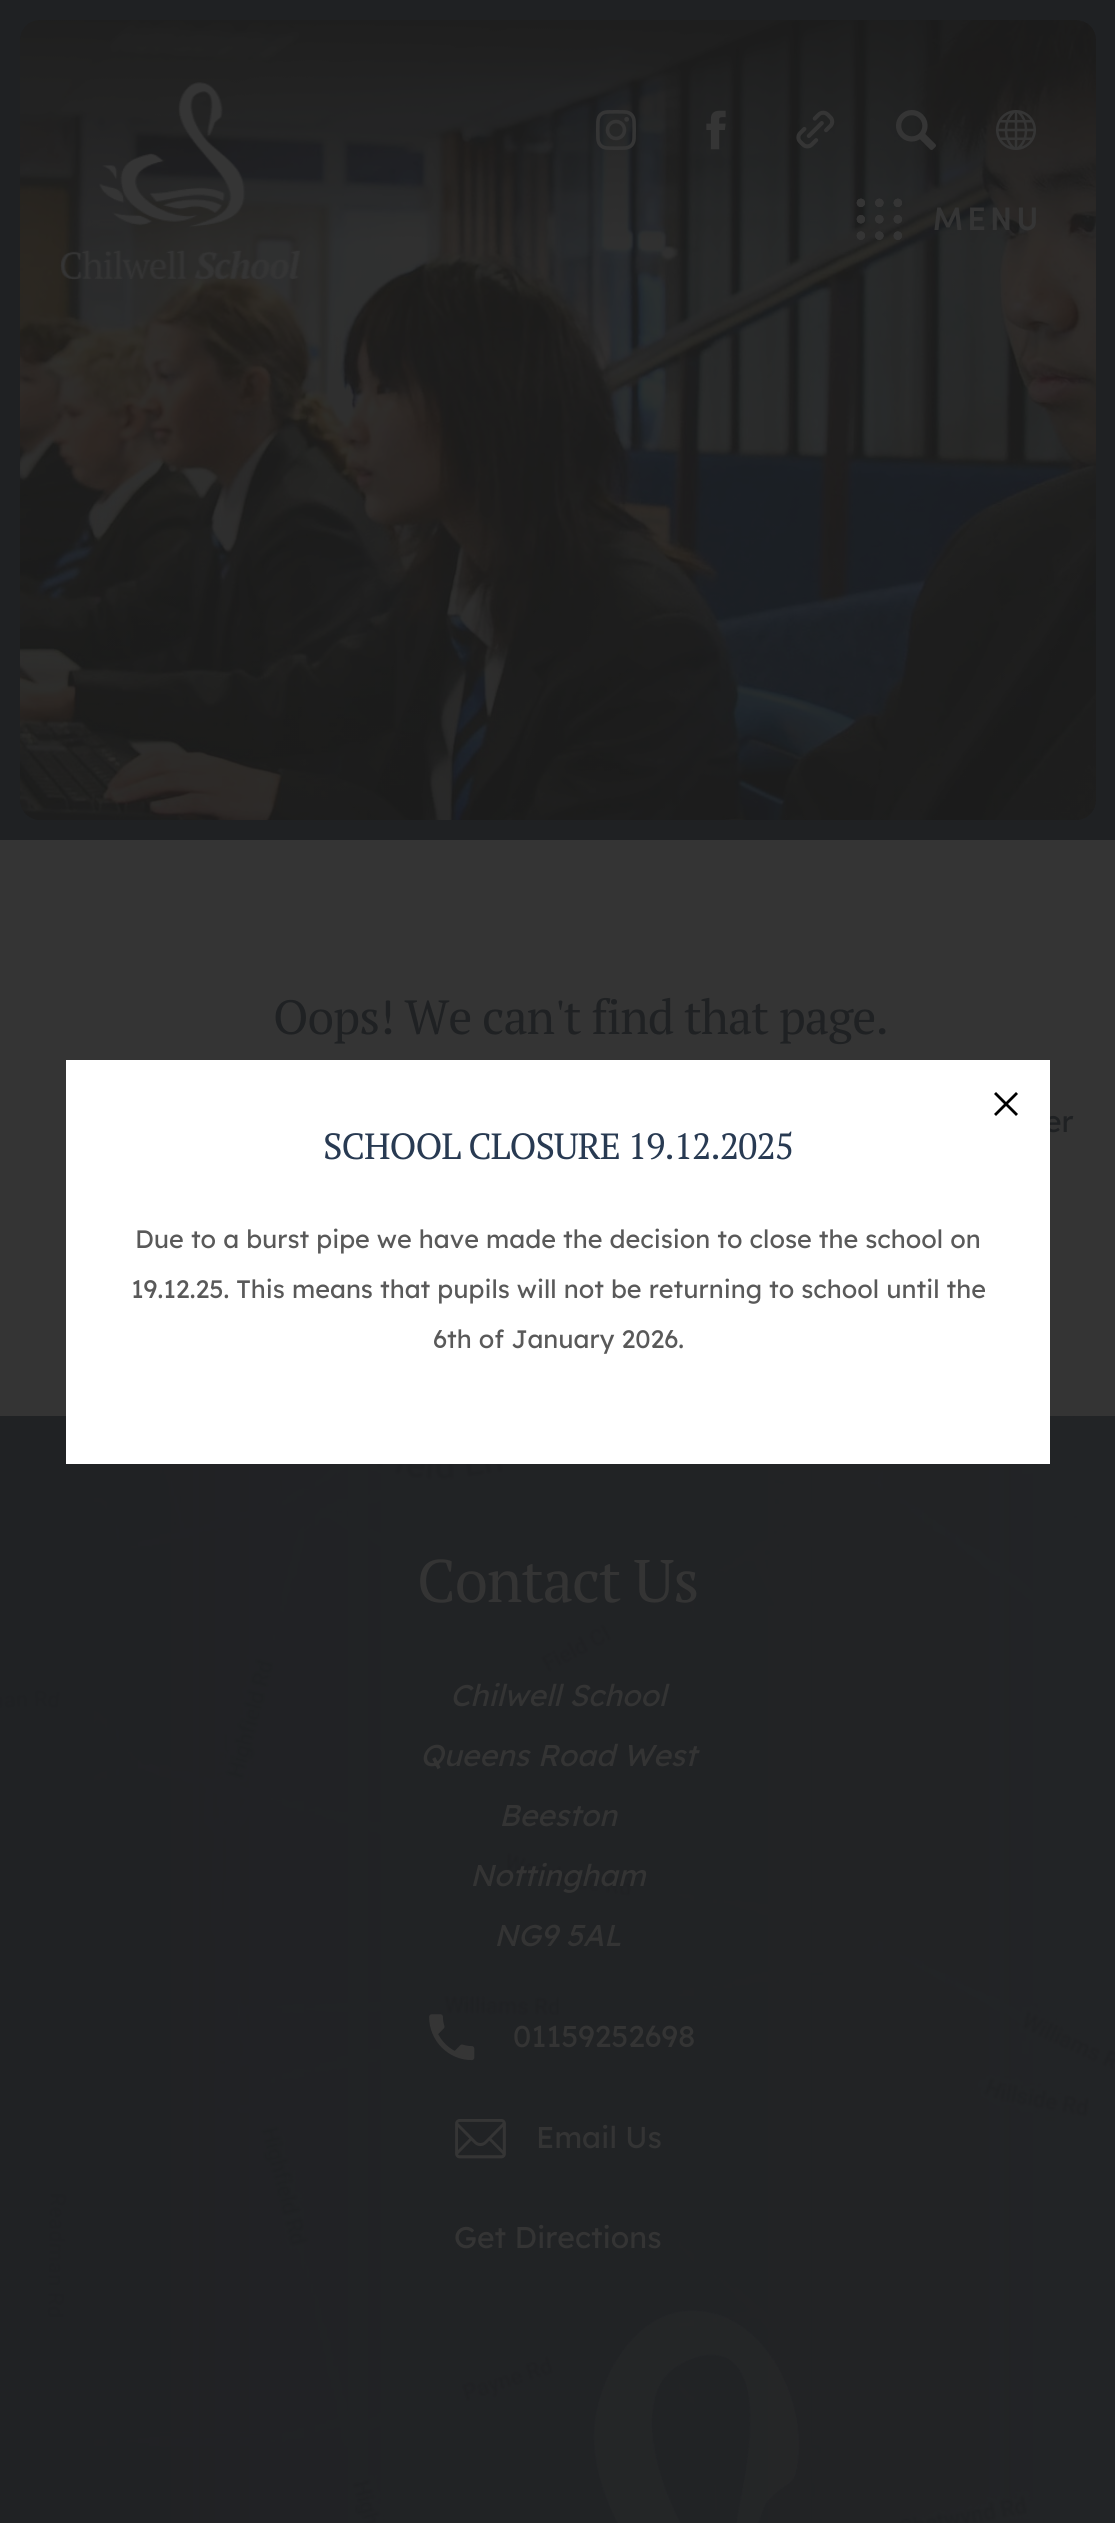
import math
import cairo

surface = cairo.ImageSurface(cairo.FORMAT_RGB24, 1115, 2523)
ctx = cairo.Context(surface)
options = cairo.FontOptions()
options.set_hint_metrics(cairo.HINT_METRICS_OFF)
options.set_hint_style(cairo.HINT_STYLE_NONE)
ctx.set_font_options(options)
ctx.set_miter_limit(4)


def spaced_text(x, y, s, letter, word):
    ctx.move_to(x, y)
    for ch in s:
        ctx.show_text(ch)
        ctx.rel_move_to(letter + word * (ch == ' '), 0)


def picture(path, x, y, w, h):
    ctx.save()
    ctx.set_source_surface(cairo.ImageSurface.create_from_png(path), x, y)
    ctx.rectangle(x, y, w, h)
    ctx.fill()
    ctx.restore()


ctx.set_source_rgb(0.122, 0.129, 0.137)
ctx.paint()
picture("img8.png", 20, 20, 1076, 800)
picture("img1.png", 60, 82, 240, 198)
picture("img2.png", 596, 110, 40, 40)
picture("img3.png", 706, 110, 20, 40)
picture("img4.png", 796, 110, 39, 39)
picture("img5.png", 896, 110, 40, 40)
picture("img6.png", 996, 110, 40, 40)
picture("img7.png", 856, 198, 180, 42)
ctx.set_source_rgb(0.204, 0.204, 0.204)
ctx.rectangle(0, 840, 1115, 576)
ctx.fill()
ctx.select_font_face("PT Serif")
ctx.set_font_size(48)
ctx.set_source_rgb(0.122, 0.129, 0.137)
spaced_text(273, 1034, "Oops! We can't find that page.", -1, 0)
ctx.select_font_face("Lexend")
ctx.set_font_size(30)
ctx.move_to(1044, 1132)
ctx.show_text("er")
picture("img9.png", 0, 1416, 1115, 1107)
ctx.select_font_face("PT Serif")
ctx.set_font_size(60)
ctx.set_source_rgb(0.204, 0.204, 0.204)
spaced_text(417, 1602, "Contact Us", -1, 0)
ctx.select_font_face("Lexend", cairo.FONT_SLANT_ITALIC)
ctx.set_font_size(30)
ctx.move_to(450, 1706)
ctx.show_text("Chilwell School")
ctx.move_to(420, 1766)
ctx.show_text("Queens Road West")
ctx.move_to(499, 1826)
ctx.show_text("Beeston")
ctx.move_to(470, 1886)
ctx.show_text("Nottingham")
ctx.move_to(494, 1946)
ctx.show_text("NG9 5AL")
picture("img10.png", 429, 2014, 46, 47)
ctx.select_font_face("Lexend")
ctx.move_to(513, 2047)
ctx.show_text("01159252698")
picture("img11.png", 455, 2119, 51, 40)
ctx.move_to(536, 2148)
ctx.show_text("Email Us")
ctx.move_to(454, 2248)
ctx.show_text("Get Directions")
picture("img12.png", 593, 2310, 207, 213)
ctx.set_source_rgb(1, 1, 1)
ctx.rectangle(66, 1060, 984, 404)
ctx.fill()
picture("img13.png", 994, 1092, 24, 24)
ctx.select_font_face("PT Serif")
ctx.set_font_size(36.4)
ctx.set_source_rgb(0.157, 0.227, 0.322)
spaced_text(323, 1159, "SCHOOL CLOSURE 19.12.2025", -1, 0)
ctx.select_font_face("Lexend")
ctx.set_font_size(25.2)
ctx.set_source_rgb(0.349, 0.349, 0.349)
ctx.move_to(135, 1248)
ctx.show_text("Due to a burst pipe we have made the decision to close the school on")
ctx.move_to(131, 1298)
ctx.show_text("19.12.25. This means that pupils will not be returning to school until the")
ctx.move_to(433, 1348)
ctx.show_text("6th of January 2026.")
surface.write_to_png("page.png")
